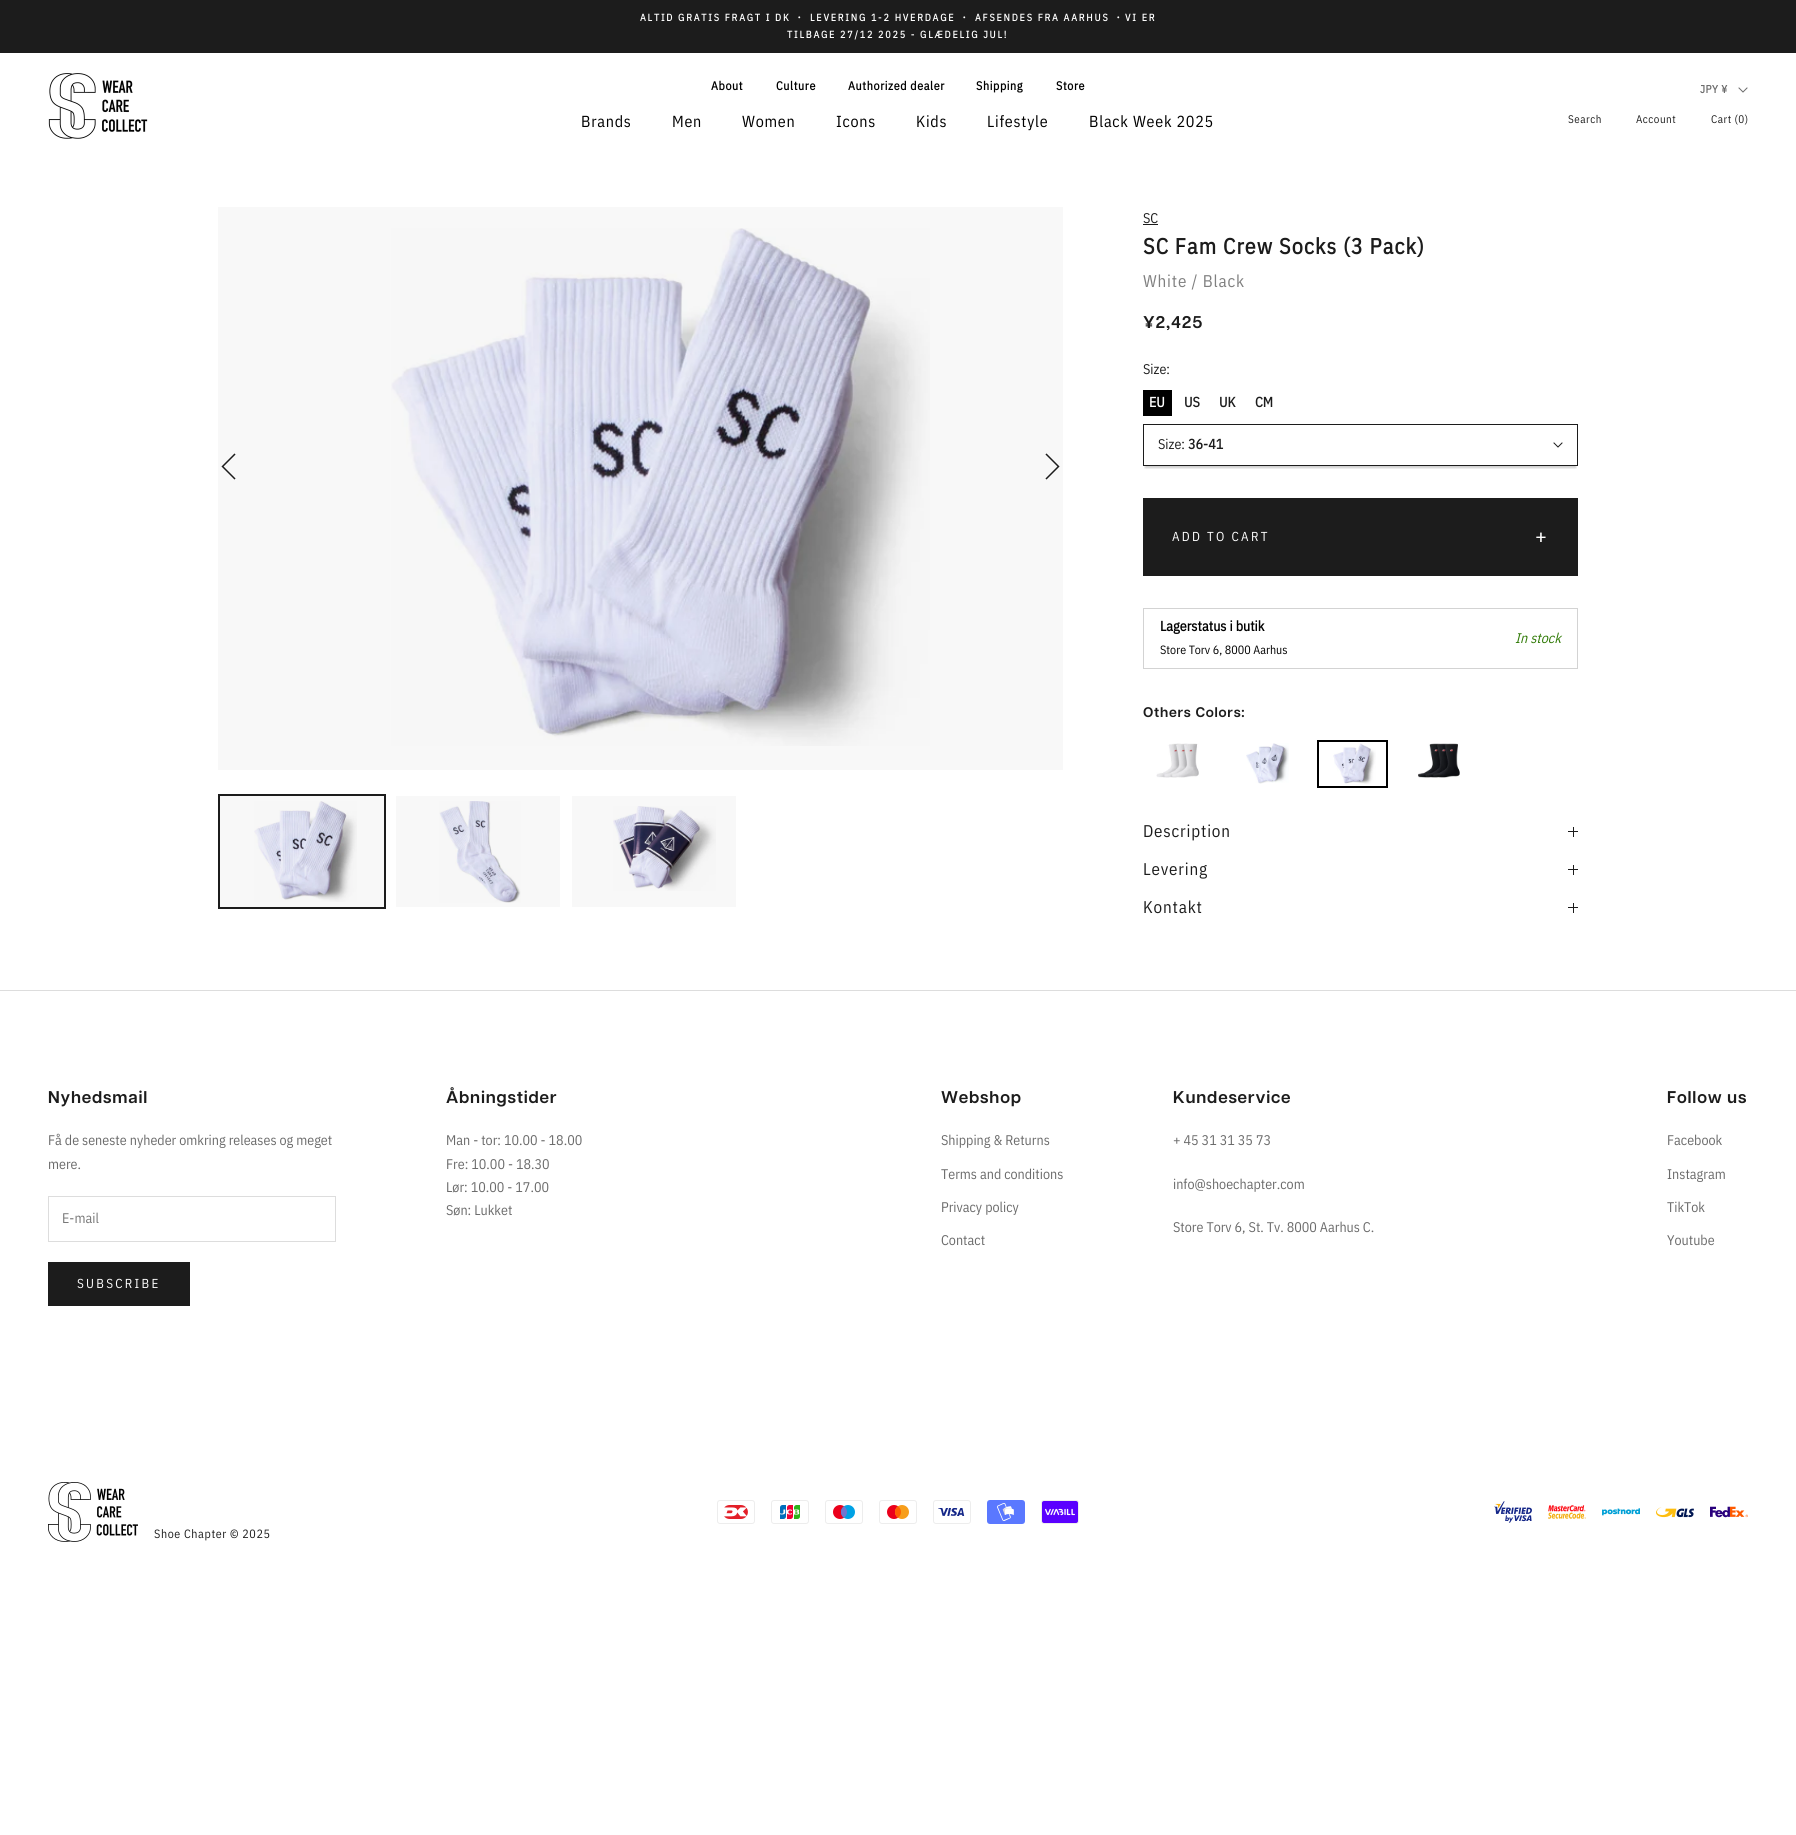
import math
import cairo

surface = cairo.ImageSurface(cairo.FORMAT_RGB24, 1796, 1835)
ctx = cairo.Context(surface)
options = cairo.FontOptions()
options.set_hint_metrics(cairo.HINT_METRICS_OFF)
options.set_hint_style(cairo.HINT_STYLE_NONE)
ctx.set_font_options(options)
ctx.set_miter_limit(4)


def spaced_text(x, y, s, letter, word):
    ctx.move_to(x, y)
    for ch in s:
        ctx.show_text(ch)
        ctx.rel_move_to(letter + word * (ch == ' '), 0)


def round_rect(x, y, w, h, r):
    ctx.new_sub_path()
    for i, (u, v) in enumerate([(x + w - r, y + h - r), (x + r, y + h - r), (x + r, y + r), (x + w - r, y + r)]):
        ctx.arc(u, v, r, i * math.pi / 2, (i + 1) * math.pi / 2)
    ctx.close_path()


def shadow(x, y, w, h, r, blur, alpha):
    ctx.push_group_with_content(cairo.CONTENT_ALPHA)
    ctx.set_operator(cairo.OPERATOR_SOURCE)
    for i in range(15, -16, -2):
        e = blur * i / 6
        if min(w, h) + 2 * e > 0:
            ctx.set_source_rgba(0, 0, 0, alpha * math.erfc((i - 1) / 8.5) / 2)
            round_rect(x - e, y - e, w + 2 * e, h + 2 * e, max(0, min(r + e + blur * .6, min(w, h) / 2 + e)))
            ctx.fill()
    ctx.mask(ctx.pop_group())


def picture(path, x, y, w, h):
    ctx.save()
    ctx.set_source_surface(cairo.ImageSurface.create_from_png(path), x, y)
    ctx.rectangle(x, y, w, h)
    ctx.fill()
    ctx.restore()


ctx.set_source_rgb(1, 1, 1)
ctx.paint()
ctx.set_source_rgb(0.969, 0.969, 0.969)
ctx.rectangle(218, 207, 845, 563)
ctx.fill()
ctx.rectangle(572, 796, 164, 111)
ctx.fill()
ctx.rectangle(396, 796, 164, 111)
ctx.fill()
ctx.set_source_rgb(0.11, 0.11, 0.11)
ctx.rectangle(0, 0, 1796, 53)
ctx.fill()
ctx.select_font_face("IBM Plex Sans Condensed", cairo.FONT_SLANT_NORMAL, cairo.FONT_WEIGHT_BOLD)
ctx.set_font_size(10)
ctx.set_source_rgb(1, 1, 1)
spaced_text(640, 21, "ALTID GRATIS FRAGT I DK", 1.8, 0)
ctx.select_font_face("WenQuanYi Zen Hei", cairo.FONT_SLANT_NORMAL, cairo.FONT_WEIGHT_BOLD)
spaced_text(794, 21, "・", 1.8, 0)
ctx.select_font_face("IBM Plex Sans Condensed", cairo.FONT_SLANT_NORMAL, cairo.FONT_WEIGHT_BOLD)
spaced_text(810, 21, "LEVERING 1-2 HVERDAGE", 1.8, 0)
ctx.select_font_face("WenQuanYi Zen Hei", cairo.FONT_SLANT_NORMAL, cairo.FONT_WEIGHT_BOLD)
spaced_text(959, 21, "・", 1.8, 0)
ctx.select_font_face("IBM Plex Sans Condensed", cairo.FONT_SLANT_NORMAL, cairo.FONT_WEIGHT_BOLD)
spaced_text(975, 21, "AFSENDES FRA AARHUS", 1.8, 0)
ctx.select_font_face("WenQuanYi Zen Hei", cairo.FONT_SLANT_NORMAL, cairo.FONT_WEIGHT_BOLD)
spaced_text(1113, 21, "・", 1.8, 0)
ctx.select_font_face("IBM Plex Sans Condensed", cairo.FONT_SLANT_NORMAL, cairo.FONT_WEIGHT_BOLD)
spaced_text(1125, 21, "VI ER", 1.8, 0)
spaced_text(787, 38, "TILBAGE 27/12 2025 - GLÆDELIG JUL!", 1.8, 0)
picture("img1.png", 48, 73, 100, 66)
ctx.set_font_size(12)
ctx.set_source_rgb(0, 0, 0)
spaced_text(711, 90, "About", 0.6, 0)
spaced_text(776, 90, "Culture", 0.6, 0)
spaced_text(848, 90, "Authorized dealer", 0.6, 0)
spaced_text(976, 90, "Shipping", 0.6, 0)
spaced_text(1056, 90, "Store", 0.6, 0)
ctx.select_font_face("IBM Plex Sans Condensed")
ctx.set_font_size(16)
spaced_text(581, 127, "Brands", 0.75, 0)
spaced_text(672, 127, "Men", 0.75, 0)
spaced_text(742, 127, "Women", 0.75, 0)
spaced_text(836, 127, "Icons", 0.75, 0)
spaced_text(916, 127, "Kids", 0.75, 0)
spaced_text(987, 127, "Lifestyle", 0.75, 0)
spaced_text(1089, 127, "Black Week 2025", 0.75, 0)
ctx.select_font_face("IBM Plex Sans Condensed", cairo.FONT_SLANT_NORMAL, cairo.FONT_WEIGHT_BOLD)
ctx.set_font_size(11)
ctx.set_source_rgb(0.42, 0.42, 0.42)
spaced_text(1700, 93, "JPY ¥", 0.5, 0)
ctx.new_path()
ctx.move_to(1739, 88)
ctx.line_to(1743, 92)
ctx.line_to(1747, 88)
ctx.set_line_width(1)
ctx.set_line_cap(cairo.LINE_CAP_SQUARE)
ctx.stroke()
ctx.select_font_face("IBM Plex Sans Condensed")
ctx.set_source_rgb(0.11, 0.11, 0.11)
spaced_text(1568, 123, "Search", 0.5, 0)
spaced_text(1636, 123, "Account", 0.5, 0)
spaced_text(1711, 123, "Cart (0)", 0.5, 0)
picture("img2.png", 391, 228, 539, 518)
ctx.new_path()
ctx.move_to(234.5, 454.5)
ctx.line_to(222.5, 466.5)
ctx.line_to(234.5, 478.5)
ctx.set_line_width(1.5)
ctx.stroke()
ctx.new_path()
ctx.move_to(1046.5, 478.5)
ctx.line_to(1058.5, 466.5)
ctx.line_to(1046.5, 454.5)
ctx.stroke()
ctx.set_source_rgb(0.969, 0.969, 0.969)
ctx.rectangle(219, 795, 166, 113)
ctx.fill_preserve()
ctx.set_source_rgb(0.11, 0.11, 0.11)
ctx.set_line_width(2)
ctx.set_line_cap(cairo.LINE_CAP_BUTT)
ctx.stroke()
picture("img3.png", 254, 801, 103, 101)
picture("img4.png", 439, 801, 82, 102)
picture("img5.png", 613, 806, 103, 85)
ctx.set_font_size(14)
ctx.move_to(1143, 223)
ctx.show_text("SC")
ctx.rectangle(1143, 224, 15, 1)
ctx.fill()
ctx.select_font_face("IBM Plex Sans Condensed", cairo.FONT_SLANT_NORMAL, cairo.FONT_WEIGHT_BOLD)
ctx.set_font_size(22)
spaced_text(1143, 254, "SC Fam Crew Socks (3 Pack)", 1.1, 0)
ctx.select_font_face("IBM Plex Sans Condensed")
ctx.set_font_size(17)
ctx.set_source_rgb(0.502, 0.502, 0.502)
spaced_text(1143, 287, "White / Black", 0.8, 0)
ctx.select_font_face("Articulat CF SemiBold")
ctx.set_source_rgb(0.11, 0.11, 0.11)
spaced_text(1143, 328, "¥2,425", 0.8, 0)
ctx.select_font_face("IBM Plex Sans Condensed")
ctx.set_font_size(14)
ctx.move_to(1143, 374)
ctx.show_text("Size:")
ctx.set_source_rgb(0, 0, 0)
ctx.rectangle(1143, 390, 29, 26)
ctx.fill()
ctx.select_font_face("IBM Plex Sans Condensed", cairo.FONT_SLANT_NORMAL, cairo.FONT_WEIGHT_BOLD)
ctx.set_source_rgb(1, 1, 1)
ctx.move_to(1149, 407)
ctx.show_text("EU")
ctx.set_source_rgb(0.11, 0.11, 0.11)
ctx.move_to(1184, 407)
ctx.show_text("US")
ctx.move_to(1219, 407)
ctx.show_text("UK")
ctx.move_to(1255, 407)
ctx.show_text("CM")
ctx.save()
ctx.rectangle(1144, 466, 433, 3)
ctx.clip()
ctx.set_source_rgb(0, 0, 0)
shadow(1145, 430, 431, 38, 0, 1, 0.2)
ctx.restore()
ctx.rectangle(1143.5, 424.5, 434, 41)
ctx.set_line_width(1)
ctx.stroke()
ctx.select_font_face("IBM Plex Sans Condensed")
ctx.move_to(1158, 449)
ctx.show_text("Size:")
ctx.select_font_face("IBM Plex Sans Condensed", cairo.FONT_SLANT_NORMAL, cairo.FONT_WEIGHT_BOLD)
ctx.move_to(1188, 449)
ctx.show_text("36-41")
ctx.new_path()
ctx.move_to(1554, 443)
ctx.line_to(1558, 447)
ctx.line_to(1562, 443)
ctx.set_line_cap(cairo.LINE_CAP_SQUARE)
ctx.stroke()
ctx.rectangle(1143.5, 498.5, 434, 77)
ctx.fill_preserve()
ctx.set_line_cap(cairo.LINE_CAP_BUTT)
ctx.stroke()
ctx.select_font_face("IBM Plex Sans Condensed")
ctx.set_font_size(13)
ctx.set_source_rgb(1, 1, 1)
spaced_text(1172, 541, "ADD TO CART", 2.25, 0)
ctx.set_font_size(22)
spaced_text(1535, 544, "+", 2.25, 0)
ctx.rectangle(1143.5, 608.5, 434, 60)
ctx.set_source_rgb(0.827, 0.827, 0.827)
ctx.stroke()
ctx.select_font_face("IBM Plex Sans Condensed", cairo.FONT_SLANT_NORMAL, cairo.FONT_WEIGHT_BOLD)
ctx.set_font_size(14)
ctx.set_source_rgb(0, 0, 0)
ctx.move_to(1160, 631)
ctx.show_text("Lagerstatus i butik")
ctx.select_font_face("IBM Plex Sans Condensed")
ctx.set_font_size(12)
ctx.move_to(1160, 654)
ctx.show_text("Store Torv 6, 8000 Aarhus")
ctx.select_font_face("IBM Plex Sans Condensed", cairo.FONT_SLANT_ITALIC)
ctx.set_font_size(14)
ctx.set_source_rgb(0.188, 0.478, 0.027)
ctx.move_to(1515, 643)
ctx.show_text("In stock")
ctx.select_font_face("Articulat CF SemiBold")
ctx.set_source_rgb(0.11, 0.11, 0.11)
spaced_text(1143, 717, "Others Colors:", 0.75, 0)
picture("img6.png", 1156, 743, 43, 35)
picture("img7.png", 1246, 743, 43, 41)
ctx.rectangle(1318, 741, 69, 46)
ctx.set_source_rgb(0, 0, 0)
ctx.set_line_width(2)
ctx.stroke()
picture("img8.png", 1333, 743, 43, 41)
picture("img9.png", 1418, 743, 42, 35)
ctx.select_font_face("IBM Plex Sans Condensed")
ctx.set_font_size(17)
ctx.set_source_rgb(0.11, 0.11, 0.11)
spaced_text(1143, 837, "Description", 0.8, 0)
ctx.rectangle(1573, 827, 1, 10)
ctx.fill()
ctx.rectangle(1568, 831, 10, 1)
ctx.fill()
spaced_text(1143, 875, "Levering", 0.8, 0)
ctx.rectangle(1573, 865, 1, 10)
ctx.fill()
ctx.rectangle(1568, 869, 10, 1)
ctx.fill()
spaced_text(1143, 913, "Kontakt", 0.8, 0)
ctx.rectangle(1573, 903, 1, 10)
ctx.fill()
ctx.rectangle(1568, 907, 10, 1)
ctx.fill()
ctx.set_source_rgb(0.867, 0.867, 0.867)
ctx.rectangle(0, 990, 1796, 1)
ctx.fill()
ctx.select_font_face("Articulat CF SemiBold")
ctx.set_source_rgb(0.11, 0.11, 0.11)
spaced_text(48, 1103, "Nyhedsmail", 0.8, 0)
ctx.select_font_face("IBM Plex Sans Condensed")
ctx.set_font_size(14)
ctx.set_source_rgb(0.42, 0.42, 0.42)
ctx.move_to(48, 1145)
ctx.show_text("Få de seneste nyheder omkring releases og meget")
ctx.move_to(48, 1169)
ctx.show_text("mere.")
ctx.rectangle(48.5, 1196.5, 287, 45)
ctx.set_source_rgb(0.867, 0.867, 0.867)
ctx.set_line_width(1)
ctx.stroke()
ctx.set_source_rgb(0.467, 0.467, 0.467)
ctx.move_to(62, 1223)
ctx.show_text("E-mail")
ctx.set_source_rgb(0.11, 0.11, 0.11)
ctx.rectangle(48.5, 1262.5, 141, 43)
ctx.fill_preserve()
ctx.stroke()
ctx.set_font_size(13)
ctx.set_source_rgb(1, 1, 1)
spaced_text(77, 1288, "SUBSCRIBE", 2.25, 0)
ctx.select_font_face("Articulat CF SemiBold")
ctx.set_font_size(17)
ctx.set_source_rgb(0.11, 0.11, 0.11)
spaced_text(446, 1103, "Åbningstider", 0.8, 0)
ctx.select_font_face("IBM Plex Sans Condensed")
ctx.set_font_size(14)
ctx.set_source_rgb(0.42, 0.42, 0.42)
ctx.move_to(446, 1145)
ctx.show_text("Man - tor: 10.00 - 18.00")
ctx.move_to(446, 1169)
ctx.show_text("Fre: 10.00 - 18.30")
ctx.move_to(446, 1192)
ctx.show_text("Lør: 10.00 - 17.00")
ctx.move_to(446, 1215)
ctx.show_text("Søn: Lukket")
ctx.select_font_face("Articulat CF SemiBold")
ctx.set_font_size(17)
ctx.set_source_rgb(0.11, 0.11, 0.11)
spaced_text(941, 1103, "Webshop", 0.8, 0)
ctx.select_font_face("IBM Plex Sans Condensed")
ctx.set_font_size(14)
ctx.set_source_rgb(0.42, 0.42, 0.42)
ctx.move_to(941, 1145)
ctx.show_text("Shipping & Returns")
ctx.move_to(941, 1179)
ctx.show_text("Terms and conditions")
ctx.move_to(941, 1212)
ctx.show_text("Privacy policy")
ctx.move_to(941, 1245)
ctx.show_text("Contact")
ctx.select_font_face("Articulat CF SemiBold")
ctx.set_font_size(17)
ctx.set_source_rgb(0.11, 0.11, 0.11)
spaced_text(1173, 1103, "Kundeservice", 0.8, 0)
ctx.select_font_face("IBM Plex Sans Condensed")
ctx.set_font_size(14)
ctx.set_source_rgb(0.42, 0.42, 0.42)
ctx.move_to(1173, 1145)
ctx.show_text("+ 45 31 31 35 73")
ctx.move_to(1173, 1189)
ctx.show_text("info@shoechapter.com")
ctx.move_to(1173, 1232)
ctx.show_text("Store Torv 6, St. Tv. 8000 Aarhus C.")
ctx.select_font_face("Articulat CF SemiBold")
ctx.set_font_size(17)
ctx.set_source_rgb(0.11, 0.11, 0.11)
spaced_text(1667, 1103, "Follow us", 0.8, 0)
ctx.select_font_face("IBM Plex Sans Condensed")
ctx.set_font_size(14)
ctx.set_source_rgb(0.42, 0.42, 0.42)
ctx.move_to(1667, 1145)
ctx.show_text("Facebook")
ctx.move_to(1667, 1179)
ctx.show_text("Instagram")
ctx.move_to(1667, 1212)
ctx.show_text("TikTok")
ctx.move_to(1667, 1245)
ctx.show_text("Youtube")
picture("img10.png", 717, 1500, 38, 24)
picture("img11.png", 771, 1500, 38, 24)
picture("img12.png", 825, 1500, 38, 24)
picture("img13.png", 879, 1500, 38, 24)
picture("img14.png", 933, 1500, 38, 24)
picture("img15.png", 987, 1500, 38, 24)
picture("img16.png", 1041, 1500, 38, 24)
picture("img17.png", 1494, 1501, 38, 22)
picture("img18.png", 1548, 1505, 38, 14)
picture("img19.png", 1602, 1508, 38, 8)
picture("img20.png", 1656, 1507, 38, 11)
picture("img21.png", 1710, 1506, 38, 12)
picture("img22.png", 48, 1482, 90, 60)
ctx.set_font_size(12)
ctx.set_source_rgb(0.11, 0.11, 0.11)
spaced_text(154, 1538, "Shoe Chapter © 2025", 0.6, 0)
surface.write_to_png("page.png")
